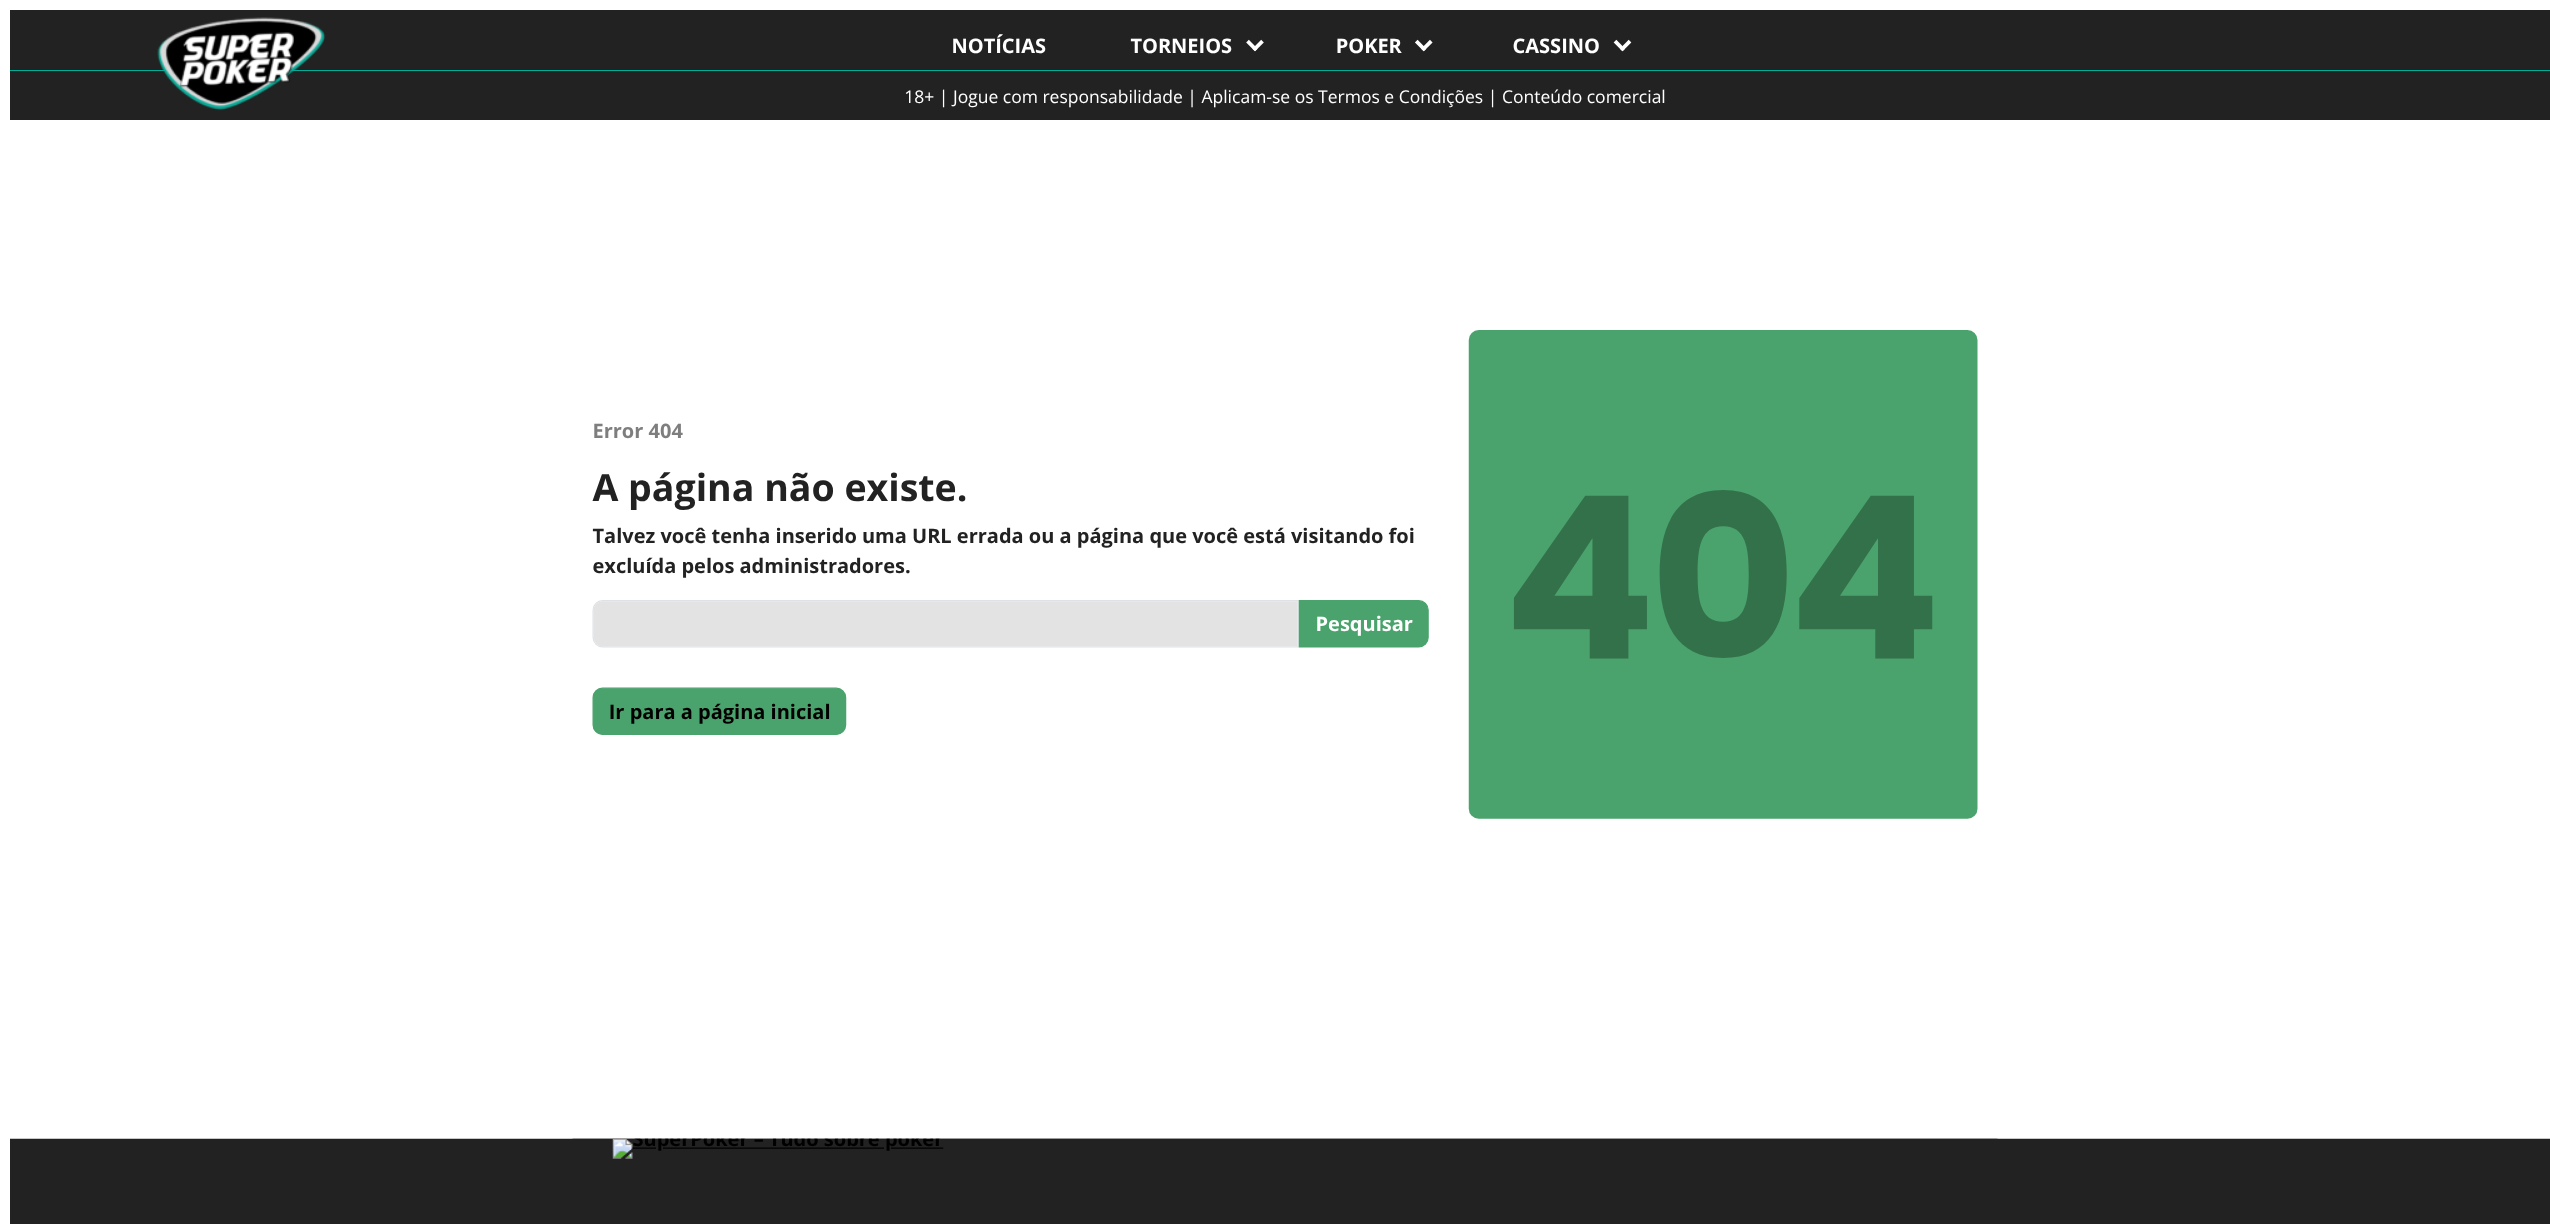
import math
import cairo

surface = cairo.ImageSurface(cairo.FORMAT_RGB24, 2550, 1224)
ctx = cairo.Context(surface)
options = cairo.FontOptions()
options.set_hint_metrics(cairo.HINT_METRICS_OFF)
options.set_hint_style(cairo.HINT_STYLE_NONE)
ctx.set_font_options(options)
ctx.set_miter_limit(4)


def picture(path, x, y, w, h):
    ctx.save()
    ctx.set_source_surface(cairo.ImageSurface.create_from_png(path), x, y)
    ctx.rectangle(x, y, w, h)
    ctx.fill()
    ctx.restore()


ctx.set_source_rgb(1, 1, 1)
ctx.paint()
picture("img1.png", 10, 10, 2540, 1214)
surface.write_to_png("page.png")
